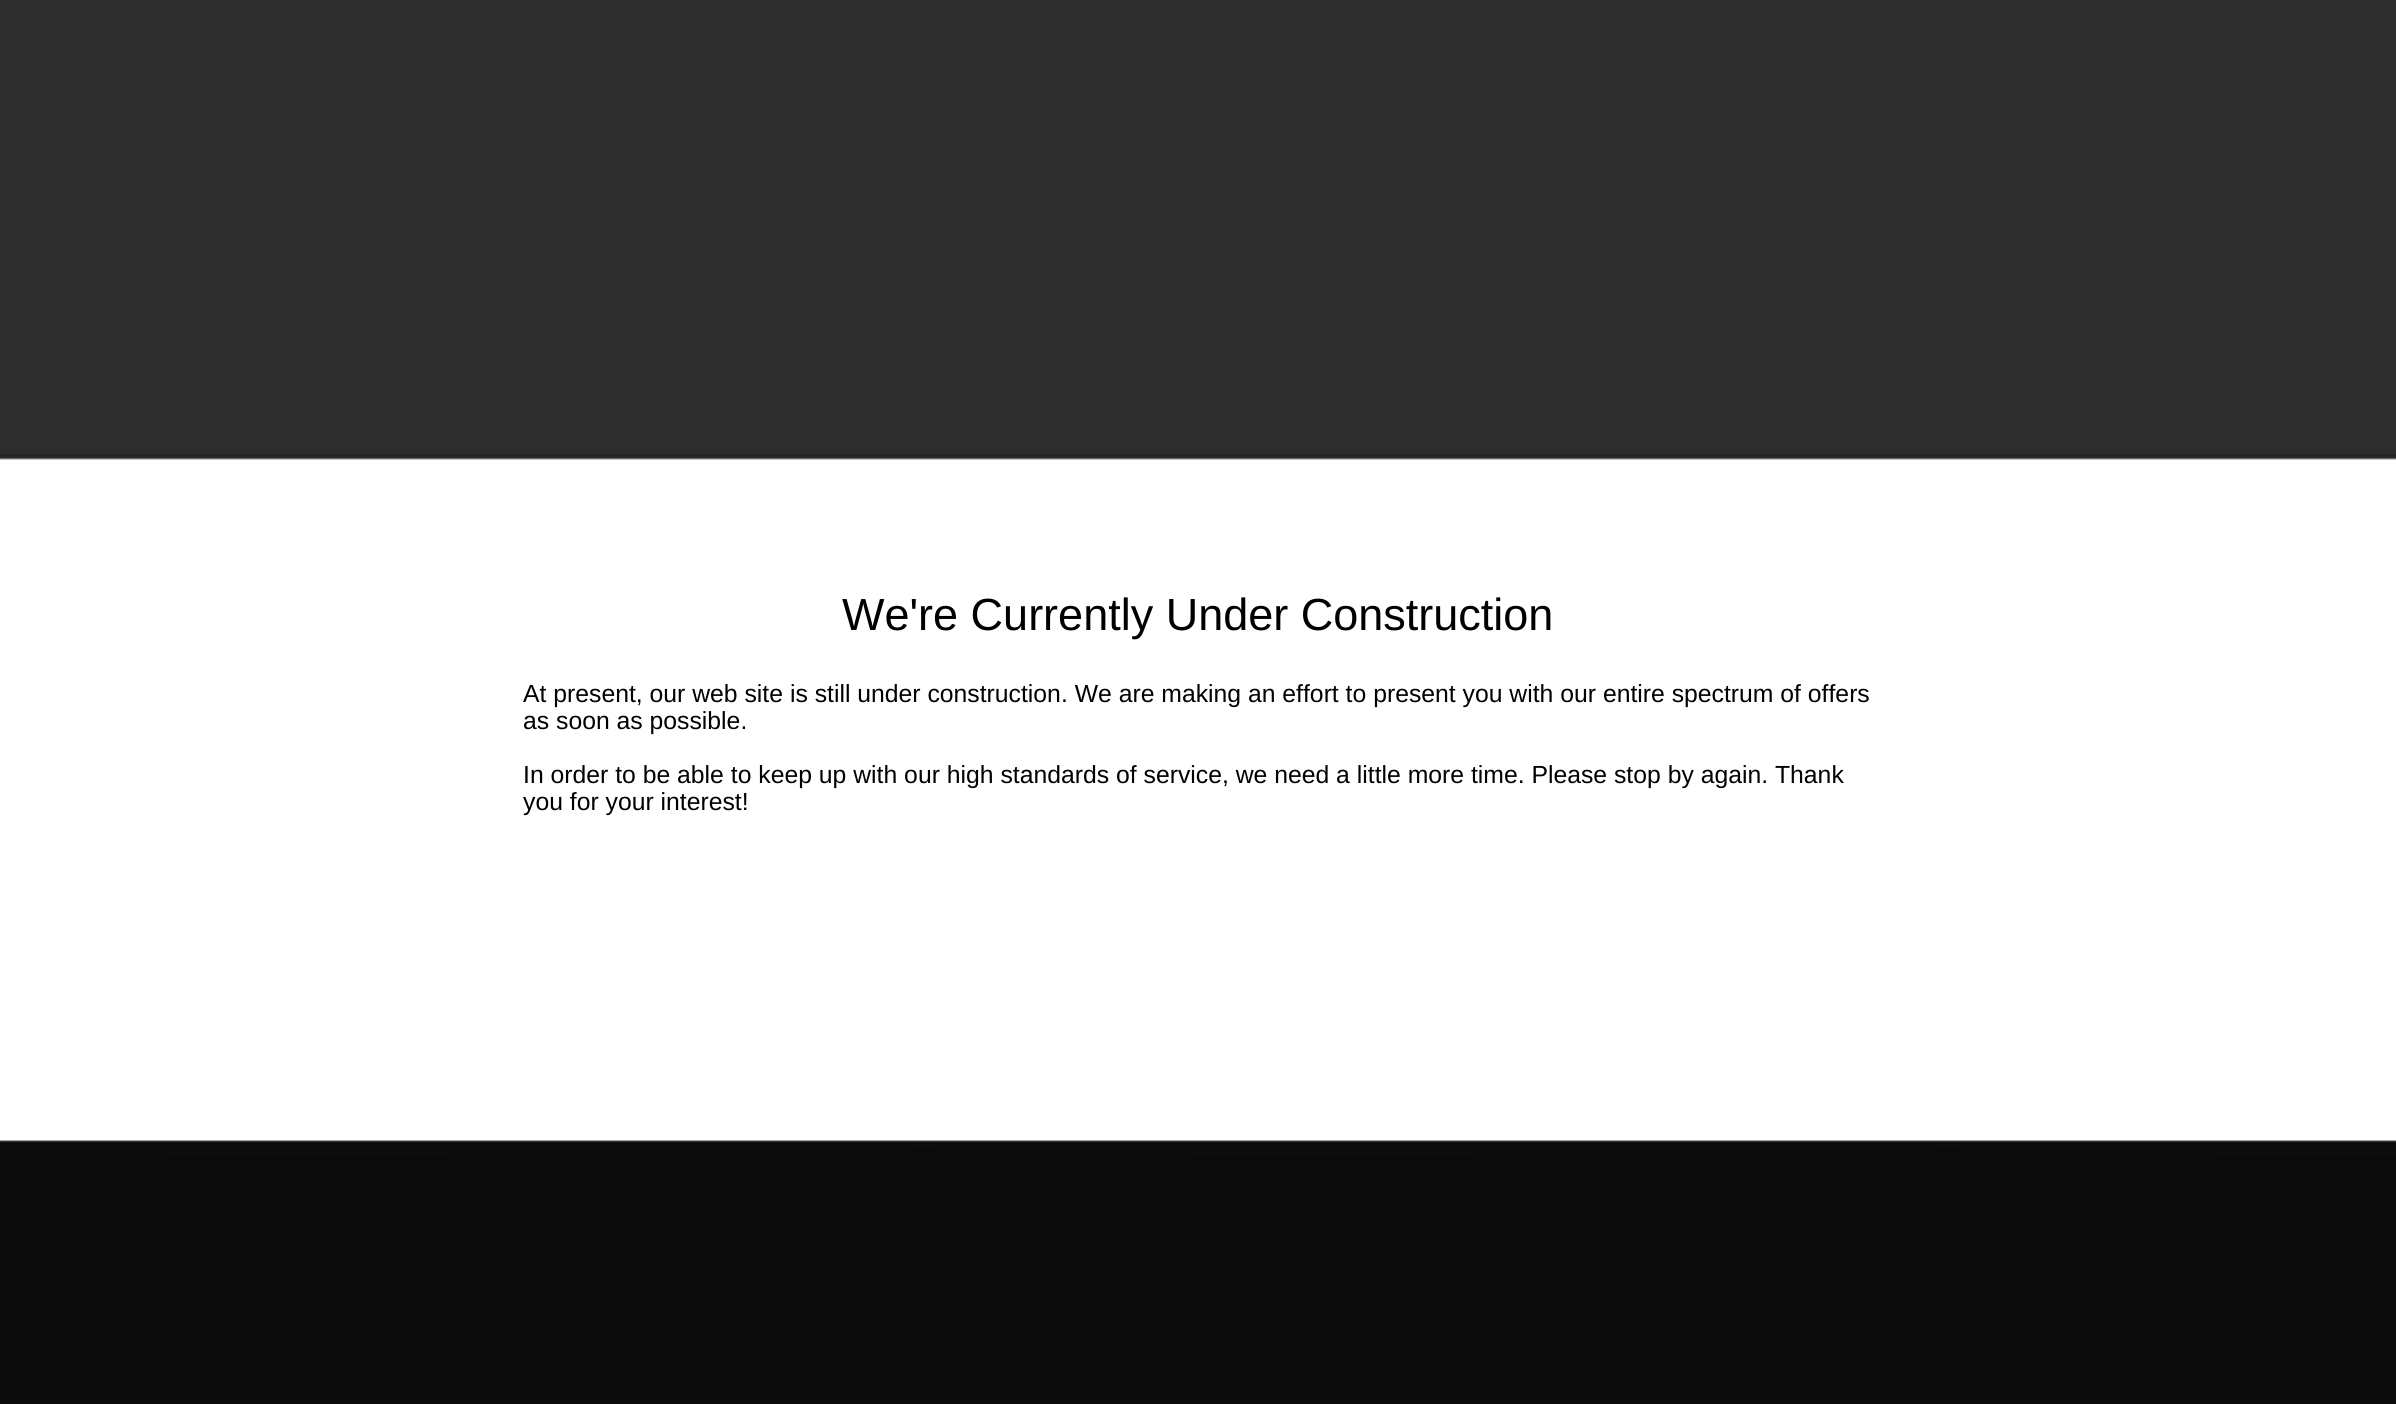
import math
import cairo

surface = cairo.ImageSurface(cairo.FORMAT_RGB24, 2396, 1404)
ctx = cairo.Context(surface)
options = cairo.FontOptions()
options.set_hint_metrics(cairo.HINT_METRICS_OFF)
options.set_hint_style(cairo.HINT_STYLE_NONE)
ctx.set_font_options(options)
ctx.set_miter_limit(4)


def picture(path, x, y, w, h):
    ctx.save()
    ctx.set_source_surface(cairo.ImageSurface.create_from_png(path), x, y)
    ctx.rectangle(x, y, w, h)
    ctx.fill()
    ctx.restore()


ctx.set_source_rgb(1, 1, 1)
ctx.paint()
picture("img1.png", 0, 0, 2396, 1404)
ctx.select_font_face("Liberation Sans")
ctx.set_font_size(45)
ctx.set_source_rgb(0, 0, 0)
ctx.move_to(842, 630)
ctx.show_text("We're Currently Under Construction")
ctx.set_font_size(24.75)
ctx.move_to(523, 702)
ctx.show_text("At present, our web site is still under construction. We are making an effort to present you with our entire spectrum of offers")
ctx.move_to(523, 729)
ctx.show_text("as soon as possible.")
ctx.move_to(523, 783)
ctx.show_text("In order to be able to keep up with our high standards of service, we need a little more time. Please stop by again. Thank")
ctx.move_to(523, 810)
ctx.show_text("you for your interest!")
surface.write_to_png("page.png")
